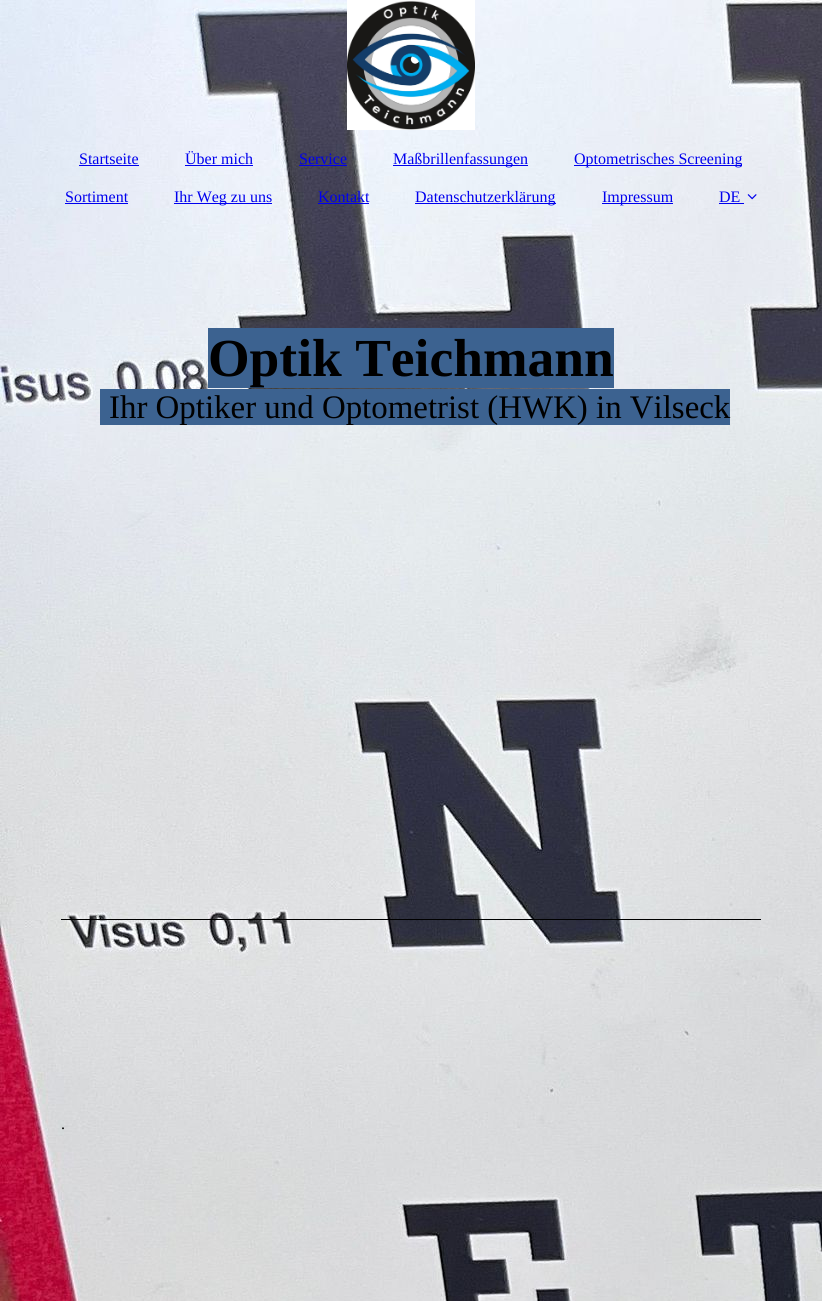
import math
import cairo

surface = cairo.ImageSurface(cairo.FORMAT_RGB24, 822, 1301)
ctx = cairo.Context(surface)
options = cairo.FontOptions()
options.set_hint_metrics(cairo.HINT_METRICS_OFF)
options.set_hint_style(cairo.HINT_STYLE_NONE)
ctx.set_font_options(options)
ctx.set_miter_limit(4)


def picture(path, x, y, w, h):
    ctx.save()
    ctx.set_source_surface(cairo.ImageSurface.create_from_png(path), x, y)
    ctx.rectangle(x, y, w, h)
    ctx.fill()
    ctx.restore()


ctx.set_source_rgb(1, 1, 1)
ctx.paint()
picture("img1.png", 0, 0, 822, 1301)
picture("img2.png", 347, 0, 128, 130)
ctx.select_font_face("Liberation Serif")
ctx.set_font_size(16)
ctx.set_source_rgb(0, 0, 0.933)
ctx.move_to(79, 164)
ctx.show_text("Startseite")
ctx.rectangle(79, 165, 60, 1)
ctx.fill()
ctx.move_to(185, 164)
ctx.show_text("Über mich")
ctx.rectangle(185, 165, 68, 1)
ctx.fill()
ctx.move_to(299, 164)
ctx.show_text("Service")
ctx.rectangle(299, 165, 48, 1)
ctx.fill()
ctx.rectangle(393, 165, 135, 1)
ctx.fill()
ctx.move_to(393, 164)
ctx.show_text("Maßbrillenfassungen")
ctx.rectangle(574, 165, 168, 1)
ctx.fill()
ctx.move_to(574, 164)
ctx.show_text("Optometrisches Screening")
ctx.move_to(65, 202)
ctx.show_text("Sortiment")
ctx.rectangle(65, 203, 63, 1)
ctx.fill()
ctx.rectangle(174, 203, 98, 1)
ctx.fill()
ctx.move_to(174, 202)
ctx.show_text("Ihr Weg zu uns")
ctx.move_to(318, 202)
ctx.show_text("Kontakt")
ctx.rectangle(318, 203, 51, 1)
ctx.fill()
ctx.rectangle(415, 203, 141, 1)
ctx.fill()
ctx.move_to(415, 202)
ctx.show_text("Datenschutzerklärung")
ctx.rectangle(602, 203, 71, 1)
ctx.fill()
ctx.move_to(602, 202)
ctx.show_text("Impressum")
ctx.move_to(719, 202)
ctx.show_text("DE")
ctx.rectangle(719, 203, 25, 1)
ctx.fill()
picture("img3.png", 747, 194, 10, 6)
ctx.set_source_rgb(0.235, 0.384, 0.565)
ctx.rectangle(208, 328, 406, 60)
ctx.fill()
ctx.select_font_face("Liberation Serif", cairo.FONT_SLANT_NORMAL, cairo.FONT_WEIGHT_BOLD)
ctx.set_font_size(53.5)
ctx.set_source_rgb(0, 0, 0)
ctx.move_to(208, 376)
ctx.show_text("Optik Teichmann")
ctx.set_source_rgb(0.235, 0.384, 0.565)
ctx.rectangle(100, 389, 630, 36)
ctx.fill()
ctx.select_font_face("Liberation Serif")
ctx.set_font_size(32.9)
ctx.set_source_rgb(0, 0, 0)
ctx.move_to(109, 418)
ctx.show_text("Ihr Optiker und Optometrist (HWK) in Vilseck")
ctx.rectangle(61, 919, 700, 1)
ctx.fill()
ctx.set_font_size(16)
ctx.move_to(61, 1129)
ctx.show_text(".")
surface.write_to_png("page.png")
